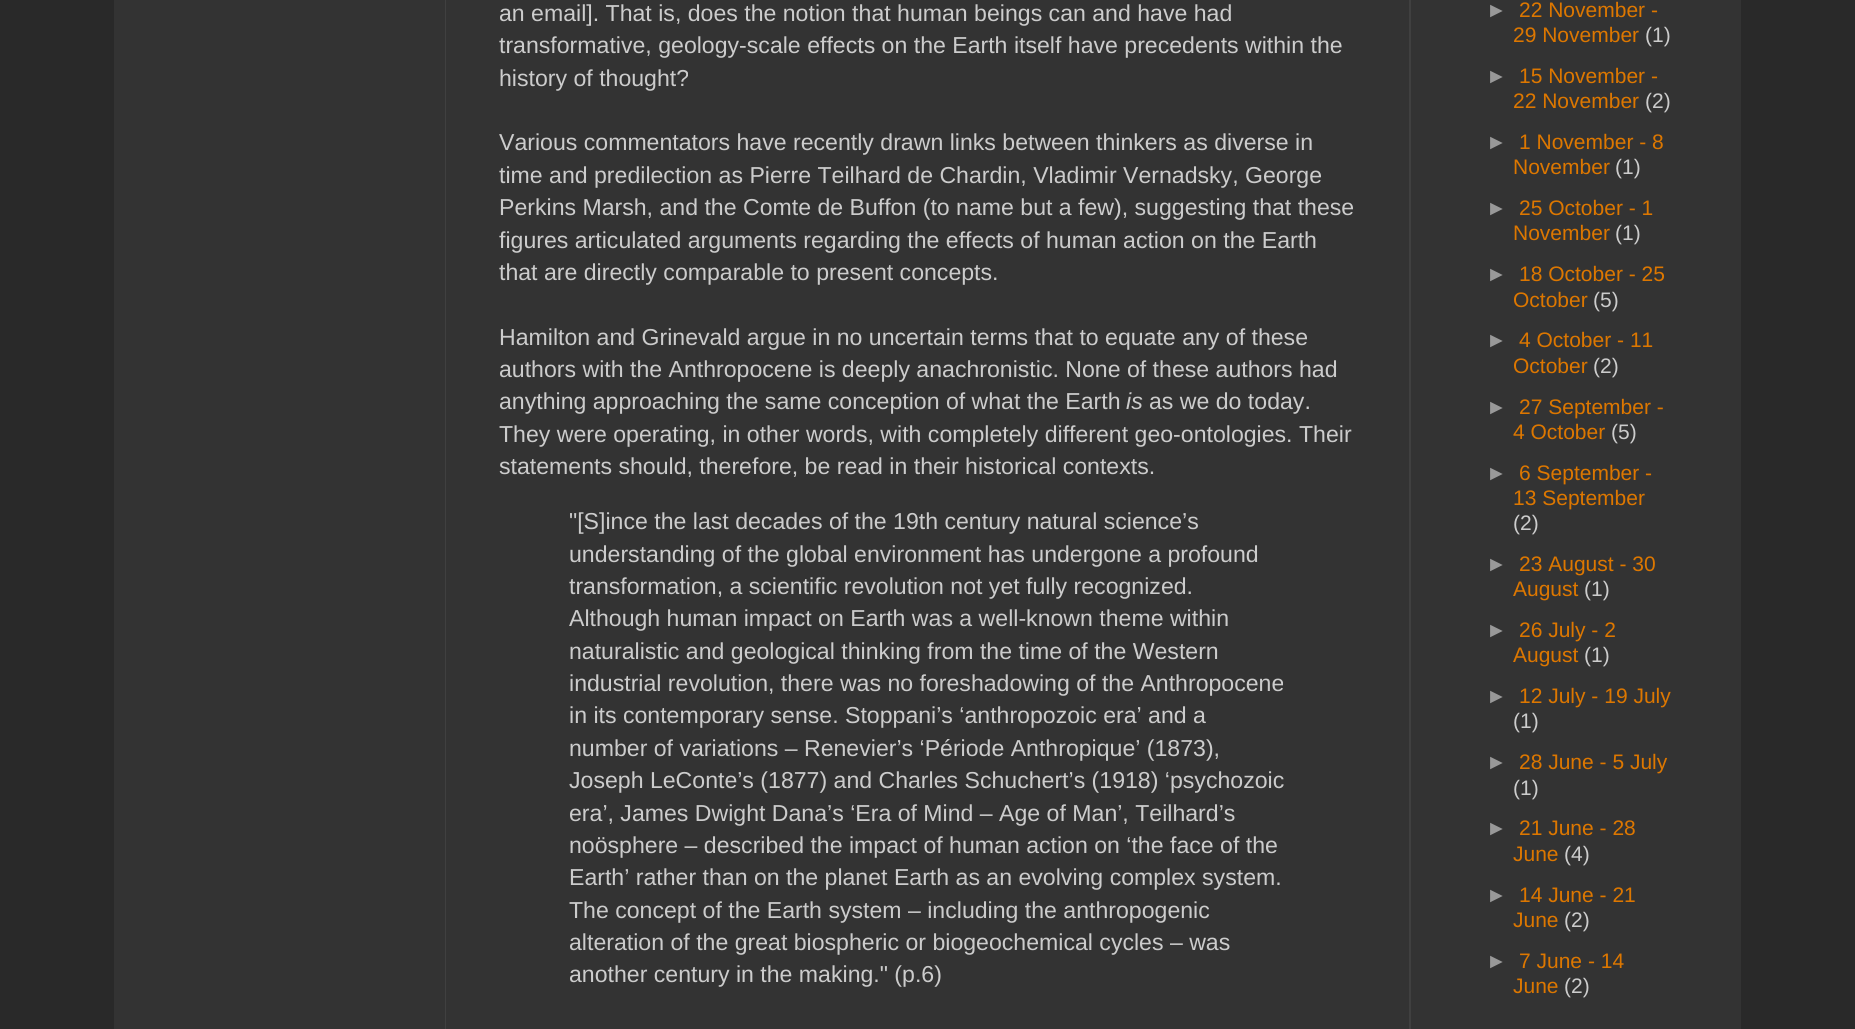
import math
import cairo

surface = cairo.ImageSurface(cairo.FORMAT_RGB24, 1855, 1029)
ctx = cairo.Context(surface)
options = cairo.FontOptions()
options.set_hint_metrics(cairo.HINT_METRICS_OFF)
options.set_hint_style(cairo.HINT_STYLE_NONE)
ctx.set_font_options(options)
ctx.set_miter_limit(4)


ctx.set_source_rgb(0.161, 0.161, 0.161)
ctx.paint()
ctx.set_source_rgb(0.2, 0.2, 0.2)
ctx.rectangle(114, 0, 1627, 1029)
ctx.fill()
ctx.set_source_rgb(0.251, 0.251, 0.251)
ctx.rectangle(445, 0, 1, 1029)
ctx.fill()
ctx.rectangle(1409, 0, 2, 1029)
ctx.fill()
ctx.select_font_face("Liberation Sans")
ctx.set_font_size(23.1)
ctx.set_source_rgb(0.8, 0.8, 0.8)
ctx.move_to(499, 21)
ctx.show_text("an email]. That is, does the notion that human beings can and have had")
ctx.move_to(499, 53)
ctx.show_text("transformative, geology-scale effects on the Earth itself have precedents within the")
ctx.move_to(499, 86)
ctx.show_text("history of thought?")
ctx.move_to(499, 150)
ctx.show_text("Various commentators have recently drawn links between thinkers as diverse in")
ctx.move_to(499, 183)
ctx.show_text("time and predilection as Pierre Teilhard de Chardin, Vladimir Vernadsky, George")
ctx.move_to(499, 215)
ctx.show_text("Perkins Marsh, and the Comte de Buffon (to name but a few), suggesting that these")
ctx.move_to(499, 248)
ctx.show_text("figures articulated arguments regarding the effects of human action on the Earth")
ctx.move_to(499, 280)
ctx.show_text("that are directly comparable to present concepts.")
ctx.move_to(499, 345)
ctx.show_text("Hamilton and Grinevald argue in no uncertain terms that to equate any of these")
ctx.move_to(499, 377)
ctx.show_text("authors with the Anthropocene is deeply anachronistic. None of these authors had")
ctx.move_to(499, 409)
ctx.show_text("anything approaching the same conception of what the Earth")
ctx.select_font_face("Liberation Sans", cairo.FONT_SLANT_ITALIC)
ctx.move_to(1126, 409)
ctx.show_text("is")
ctx.select_font_face("Liberation Sans")
ctx.move_to(1149, 409)
ctx.show_text("as we do today.")
ctx.move_to(499, 442)
ctx.show_text("They were operating, in other words, with completely different geo-ontologies. Their")
ctx.move_to(499, 474)
ctx.show_text("statements should, therefore, be read in their historical contexts.")
ctx.move_to(569, 529)
ctx.show_text("\"[S]ince the last decades of the 19th century natural science’s")
ctx.move_to(569, 562)
ctx.show_text("understanding of the global environment has undergone a profound")
ctx.move_to(569, 594)
ctx.show_text("transformation, a scientific revolution not yet fully recognized.")
ctx.move_to(569, 626)
ctx.show_text("Although human impact on Earth was a well-known theme within")
ctx.move_to(569, 659)
ctx.show_text("naturalistic and geological thinking from the time of the Western")
ctx.move_to(569, 691)
ctx.show_text("industrial revolution, there was no foreshadowing of the Anthropocene")
ctx.move_to(569, 723)
ctx.show_text("in its contemporary sense. Stoppani’s ‘anthropozoic era’ and a")
ctx.move_to(569, 756)
ctx.show_text("number of variations – Renevier’s ‘Période Anthropique’ (1873),")
ctx.move_to(569, 788)
ctx.show_text("Joseph LeConte’s (1877) and Charles Schuchert’s (1918) ‘psychozoic")
ctx.move_to(569, 821)
ctx.show_text("era’, James Dwight Dana’s ‘Era of Mind – Age of Man’, Teilhard’s")
ctx.move_to(569, 853)
ctx.show_text("noösphere – described the impact of human action on ‘the face of the")
ctx.move_to(569, 885)
ctx.show_text("Earth’ rather than on the planet Earth as an evolving complex system.")
ctx.move_to(569, 918)
ctx.show_text("The concept of the Earth system – including the anthropogenic")
ctx.move_to(569, 950)
ctx.show_text("alteration of the great biospheric or biogeochemical cycles – was")
ctx.move_to(569, 982)
ctx.show_text("another century in the making.\" (p.6)")
ctx.set_font_size(21)
ctx.set_source_rgb(0.6, 0.6, 0.6)
ctx.move_to(1486, 17)
ctx.show_text("►")
ctx.set_source_rgb(0.867, 0.467, 0)
ctx.move_to(1519, 17)
ctx.show_text("22 November -")
ctx.move_to(1513, 42)
ctx.show_text("29 November")
ctx.set_source_rgb(0.8, 0.8, 0.8)
ctx.move_to(1645, 42)
ctx.show_text("(1)")
ctx.set_source_rgb(0.6, 0.6, 0.6)
ctx.move_to(1486, 83)
ctx.show_text("►")
ctx.set_source_rgb(0.867, 0.467, 0)
ctx.move_to(1519, 83)
ctx.show_text("15 November -")
ctx.move_to(1513, 108)
ctx.show_text("22 November")
ctx.set_source_rgb(0.8, 0.8, 0.8)
ctx.move_to(1645, 108)
ctx.show_text("(2)")
ctx.set_source_rgb(0.6, 0.6, 0.6)
ctx.move_to(1486, 149)
ctx.show_text("►")
ctx.set_source_rgb(0.867, 0.467, 0)
ctx.move_to(1519, 149)
ctx.show_text("1 November - 8")
ctx.move_to(1513, 174)
ctx.show_text("November")
ctx.set_source_rgb(0.8, 0.8, 0.8)
ctx.move_to(1615, 174)
ctx.show_text("(1)")
ctx.set_source_rgb(0.6, 0.6, 0.6)
ctx.move_to(1486, 215)
ctx.show_text("►")
ctx.set_source_rgb(0.867, 0.467, 0)
ctx.move_to(1519, 215)
ctx.show_text("25 October - 1")
ctx.move_to(1513, 240)
ctx.show_text("November")
ctx.set_source_rgb(0.8, 0.8, 0.8)
ctx.move_to(1615, 240)
ctx.show_text("(1)")
ctx.set_source_rgb(0.6, 0.6, 0.6)
ctx.move_to(1486, 281)
ctx.show_text("►")
ctx.set_source_rgb(0.867, 0.467, 0)
ctx.move_to(1519, 281)
ctx.show_text("18 October - 25")
ctx.move_to(1513, 307)
ctx.show_text("October")
ctx.set_source_rgb(0.8, 0.8, 0.8)
ctx.move_to(1593, 307)
ctx.show_text("(5)")
ctx.set_source_rgb(0.6, 0.6, 0.6)
ctx.move_to(1486, 347)
ctx.show_text("►")
ctx.set_source_rgb(0.867, 0.467, 0)
ctx.move_to(1519, 347)
ctx.show_text("4 October - 11")
ctx.move_to(1513, 373)
ctx.show_text("October")
ctx.set_source_rgb(0.8, 0.8, 0.8)
ctx.move_to(1593, 373)
ctx.show_text("(2)")
ctx.set_source_rgb(0.6, 0.6, 0.6)
ctx.move_to(1486, 414)
ctx.show_text("►")
ctx.set_source_rgb(0.867, 0.467, 0)
ctx.move_to(1519, 414)
ctx.show_text("27 September -")
ctx.move_to(1513, 439)
ctx.show_text("4 October")
ctx.set_source_rgb(0.8, 0.8, 0.8)
ctx.move_to(1611, 439)
ctx.show_text("(5)")
ctx.set_source_rgb(0.6, 0.6, 0.6)
ctx.move_to(1486, 480)
ctx.show_text("►")
ctx.set_source_rgb(0.867, 0.467, 0)
ctx.move_to(1519, 480)
ctx.show_text("6 September -")
ctx.move_to(1513, 505)
ctx.show_text("13 September")
ctx.set_source_rgb(0.8, 0.8, 0.8)
ctx.move_to(1513, 530)
ctx.show_text("(2)")
ctx.set_source_rgb(0.6, 0.6, 0.6)
ctx.move_to(1486, 571)
ctx.show_text("►")
ctx.set_source_rgb(0.867, 0.467, 0)
ctx.move_to(1519, 571)
ctx.show_text("23 August - 30")
ctx.move_to(1513, 596)
ctx.show_text("August")
ctx.set_source_rgb(0.8, 0.8, 0.8)
ctx.move_to(1584, 596)
ctx.show_text("(1)")
ctx.set_source_rgb(0.6, 0.6, 0.6)
ctx.move_to(1486, 637)
ctx.show_text("►")
ctx.set_source_rgb(0.867, 0.467, 0)
ctx.move_to(1519, 637)
ctx.show_text("26 July - 2")
ctx.move_to(1513, 662)
ctx.show_text("August")
ctx.set_source_rgb(0.8, 0.8, 0.8)
ctx.move_to(1584, 662)
ctx.show_text("(1)")
ctx.set_source_rgb(0.6, 0.6, 0.6)
ctx.move_to(1486, 703)
ctx.show_text("►")
ctx.set_source_rgb(0.867, 0.467, 0)
ctx.move_to(1519, 703)
ctx.show_text("12 July - 19 July")
ctx.set_source_rgb(0.8, 0.8, 0.8)
ctx.move_to(1513, 728)
ctx.show_text("(1)")
ctx.set_source_rgb(0.6, 0.6, 0.6)
ctx.move_to(1486, 769)
ctx.show_text("►")
ctx.set_source_rgb(0.867, 0.467, 0)
ctx.move_to(1519, 769)
ctx.show_text("28 June - 5 July")
ctx.set_source_rgb(0.8, 0.8, 0.8)
ctx.move_to(1513, 795)
ctx.show_text("(1)")
ctx.set_source_rgb(0.6, 0.6, 0.6)
ctx.move_to(1486, 835)
ctx.show_text("►")
ctx.set_source_rgb(0.867, 0.467, 0)
ctx.move_to(1519, 835)
ctx.show_text("21 June - 28")
ctx.move_to(1513, 861)
ctx.show_text("June")
ctx.set_source_rgb(0.8, 0.8, 0.8)
ctx.move_to(1564, 861)
ctx.show_text("(4)")
ctx.set_source_rgb(0.6, 0.6, 0.6)
ctx.move_to(1486, 902)
ctx.show_text("►")
ctx.set_source_rgb(0.867, 0.467, 0)
ctx.move_to(1519, 902)
ctx.show_text("14 June - 21")
ctx.move_to(1513, 927)
ctx.show_text("June")
ctx.set_source_rgb(0.8, 0.8, 0.8)
ctx.move_to(1564, 927)
ctx.show_text("(2)")
ctx.set_source_rgb(0.6, 0.6, 0.6)
ctx.move_to(1486, 968)
ctx.show_text("►")
ctx.set_source_rgb(0.867, 0.467, 0)
ctx.move_to(1519, 968)
ctx.show_text("7 June - 14")
ctx.move_to(1513, 993)
ctx.show_text("June")
ctx.set_source_rgb(0.8, 0.8, 0.8)
ctx.move_to(1564, 993)
ctx.show_text("(2)")
surface.write_to_png("page.png")
